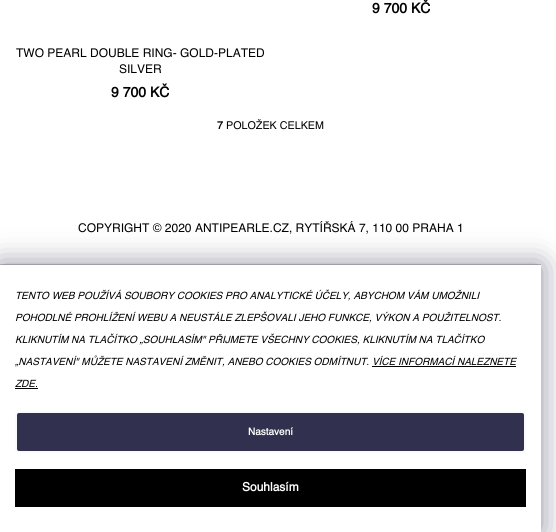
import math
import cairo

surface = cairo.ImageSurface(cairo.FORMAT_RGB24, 556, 532)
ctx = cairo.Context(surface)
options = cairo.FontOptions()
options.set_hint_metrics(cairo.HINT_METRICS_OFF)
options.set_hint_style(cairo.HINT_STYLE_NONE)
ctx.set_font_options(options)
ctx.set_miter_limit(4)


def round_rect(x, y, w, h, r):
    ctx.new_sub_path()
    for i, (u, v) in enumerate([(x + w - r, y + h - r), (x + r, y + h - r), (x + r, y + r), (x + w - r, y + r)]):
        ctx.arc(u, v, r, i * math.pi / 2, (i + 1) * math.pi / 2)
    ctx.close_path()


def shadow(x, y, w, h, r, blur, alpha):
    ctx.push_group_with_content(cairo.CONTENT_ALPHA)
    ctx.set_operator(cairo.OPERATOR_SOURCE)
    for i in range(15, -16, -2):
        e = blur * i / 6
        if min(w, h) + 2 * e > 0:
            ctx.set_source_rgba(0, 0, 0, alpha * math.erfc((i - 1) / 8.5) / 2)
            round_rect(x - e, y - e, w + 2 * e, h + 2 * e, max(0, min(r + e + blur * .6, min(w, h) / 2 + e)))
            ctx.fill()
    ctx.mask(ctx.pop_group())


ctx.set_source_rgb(1, 1, 1)
ctx.paint()
ctx.select_font_face("Helvetica", cairo.FONT_SLANT_NORMAL, cairo.FONT_WEIGHT_BOLD)
ctx.set_font_size(14)
ctx.set_source_rgb(0, 0, 0)
ctx.move_to(372, 13)
ctx.show_text("9 700 KČ")
ctx.select_font_face("Helvetica")
ctx.set_font_size(12)
ctx.move_to(16, 57)
ctx.show_text("TWO PEARL DOUBLE RING- GOLD-PLATED")
ctx.move_to(119, 73)
ctx.show_text("SILVER")
ctx.select_font_face("Helvetica", cairo.FONT_SLANT_NORMAL, cairo.FONT_WEIGHT_BOLD)
ctx.set_font_size(14)
ctx.move_to(111, 97)
ctx.show_text("9 700 KČ")
ctx.set_font_size(10.75)
ctx.move_to(217, 129)
ctx.show_text("7")
ctx.select_font_face("Helvetica")
ctx.move_to(226, 129)
ctx.show_text("POLOŽEK CELKEM")
ctx.set_font_size(12)
ctx.move_to(78, 232)
ctx.show_text("COPYRIGHT © 2020 ANTIPEARLE.CZ, RYTÍŘSKÁ 7, 110 00 PRAHA 1")
ctx.set_source_rgb(0.8, 0.8, 0.8)
ctx.rectangle(0, 264, 541, 1)
ctx.fill()
ctx.set_source_rgb(0.106, 0.098, 0.224)
shadow(0, 265, 541, 267, 0, 15, 0.5)
ctx.set_source_rgb(1, 1, 1)
ctx.rectangle(0, 265, 541, 267)
ctx.fill()
ctx.select_font_face("Helvetica", cairo.FONT_SLANT_ITALIC)
ctx.set_font_size(10)
ctx.set_source_rgb(0, 0, 0)
ctx.move_to(15, 299)
ctx.show_text("TENTO WEB POUŽÍVÁ SOUBORY COOKIES PRO ANALYTICKÉ ÚČELY, ABYCHOM VÁM UMOŽNILI")
ctx.move_to(15, 321)
ctx.show_text("POHODLNÉ PROHLÍŽENÍ WEBU A NEUSTÁLE ZLEPŠOVALI JEHO FUNKCE, VÝKON A POUŽITELNOST.")
ctx.move_to(15, 343)
ctx.show_text("KLIKNUTÍM NA TLAČÍTKO „SOUHLASÍM\" PŘIJMETE VŠECHNY COOKIES, KLIKNUTÍM NA TLAČÍTKO")
ctx.move_to(15, 365)
ctx.show_text("„NASTAVENÍ\" MŮŽETE NASTAVENÍ ZMĚNIT, ANEBO COOKIES ODMÍTNUT. VÍCE INFORMACÍ NALEZNETE")
ctx.rectangle(372, 366, 144, 1)
ctx.fill()
ctx.move_to(15, 387)
ctx.show_text("ZDE.")
ctx.rectangle(15, 388, 23, 1)
ctx.fill()
ctx.set_source_rgb(0.192, 0.188, 0.31)
round_rect(16, 412, 509, 40, 3)
ctx.fill_preserve()
ctx.set_source_rgb(0.973, 0.98, 0.984)
ctx.stroke()
ctx.select_font_face("Helvetica", cairo.FONT_SLANT_NORMAL, cairo.FONT_WEIGHT_BOLD)
ctx.set_source_rgb(1, 1, 1)
ctx.move_to(248, 435)
ctx.show_text("Nastavení")
ctx.set_source_rgb(0, 0, 0)
ctx.rectangle(15, 469, 511, 38)
ctx.fill()
ctx.set_font_size(12)
ctx.set_source_rgb(1, 1, 1)
ctx.move_to(242, 491)
ctx.show_text("Souhlasím")
surface.write_to_png("page.png")
